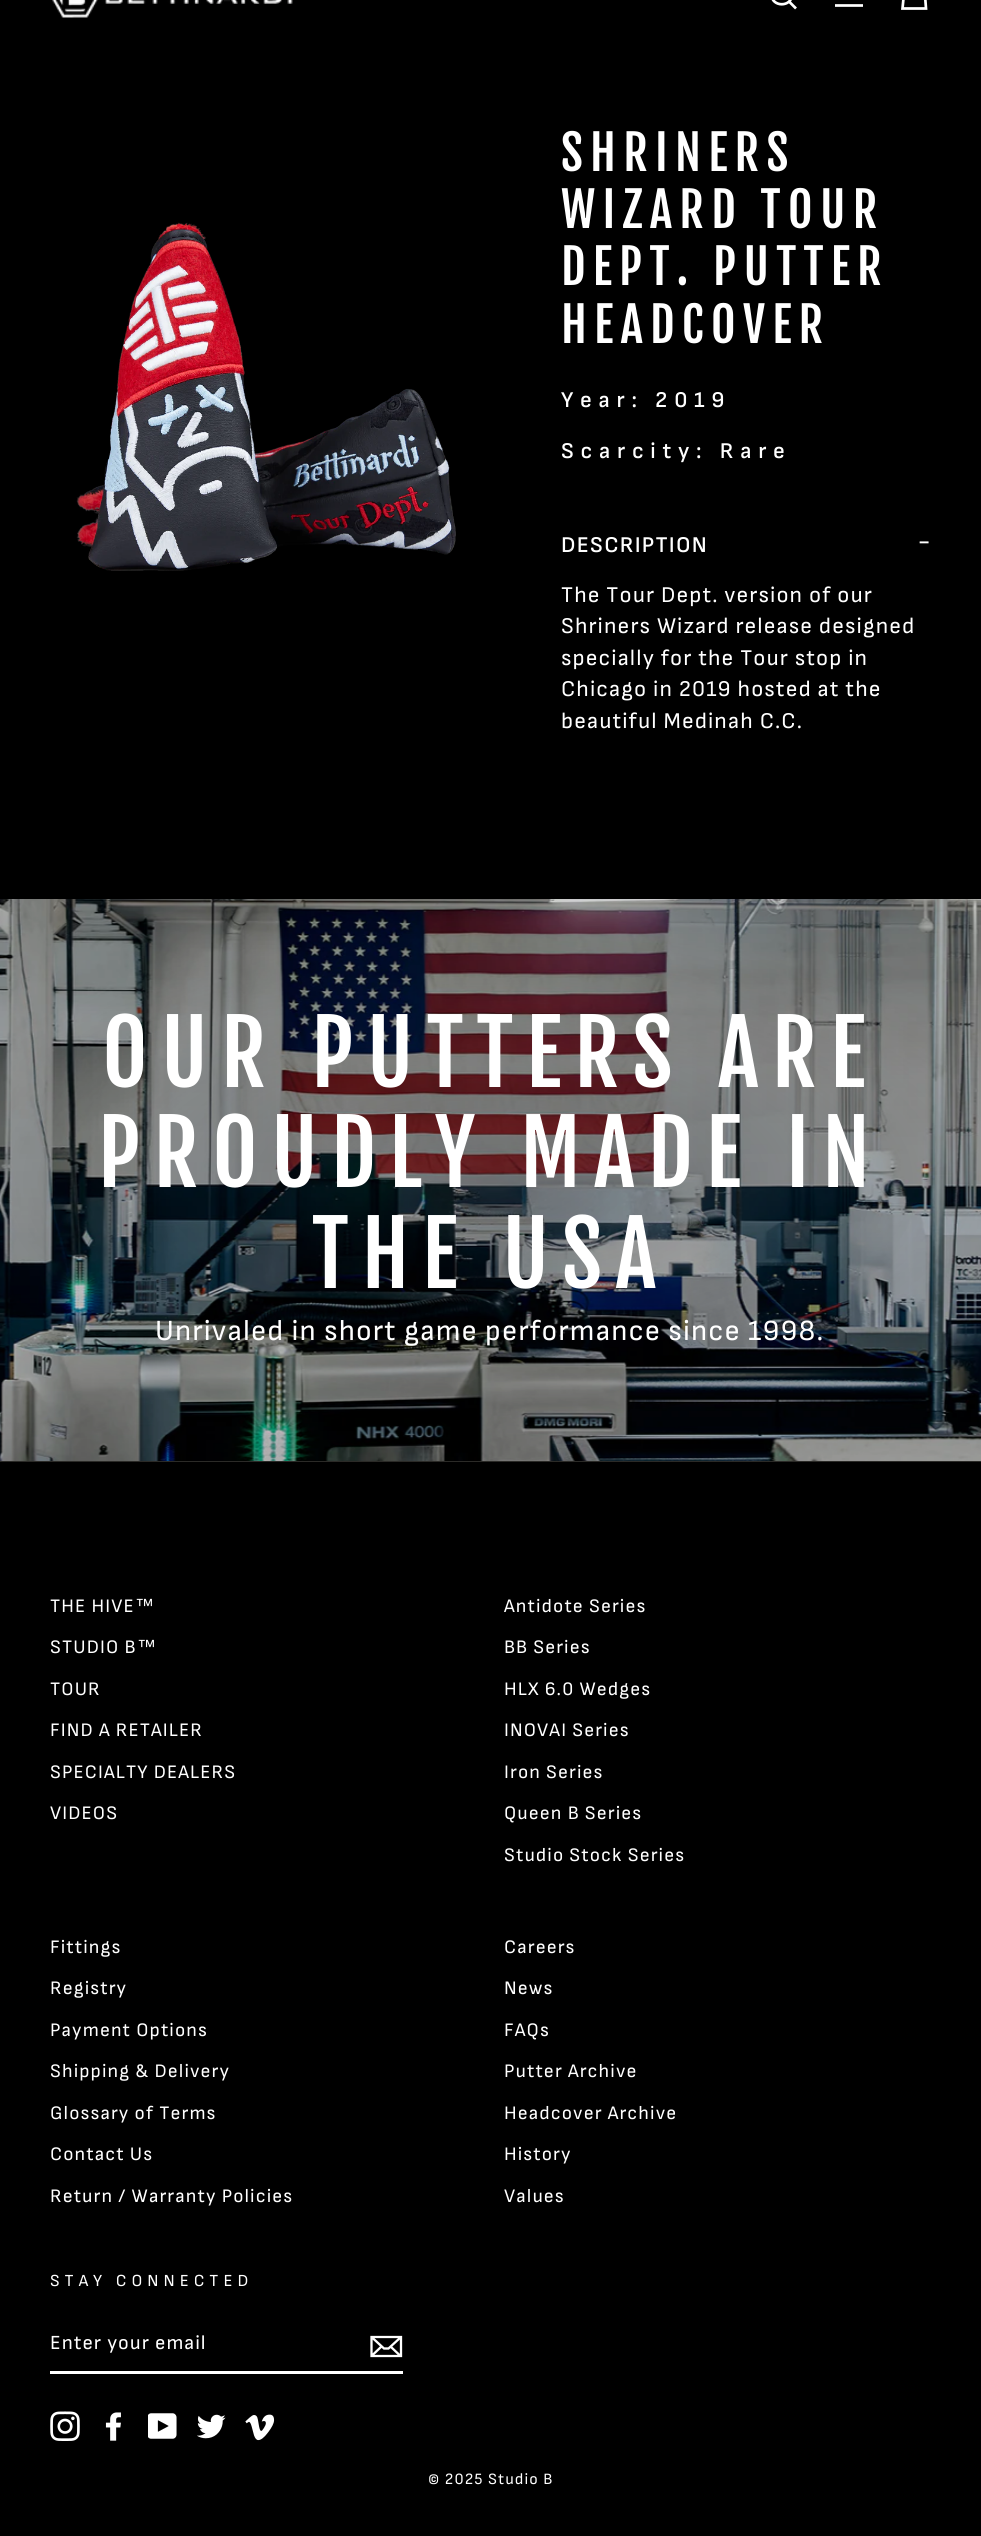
import math
import cairo

surface = cairo.ImageSurface(cairo.FORMAT_RGB24, 981, 2536)
ctx = cairo.Context(surface)
options = cairo.FontOptions()
options.set_hint_metrics(cairo.HINT_METRICS_OFF)
options.set_hint_style(cairo.HINT_STYLE_NONE)
ctx.set_font_options(options)
ctx.set_miter_limit(4)


def spaced_text(x, y, s, letter, word):
    ctx.move_to(x, y)
    for ch in s:
        ctx.show_text(ch)
        ctx.rel_move_to(letter + word * (ch == ' '), 0)


def picture(path, x, y, w, h):
    ctx.save()
    ctx.set_source_surface(cairo.ImageSurface.create_from_png(path), x, y)
    ctx.rectangle(x, y, w, h)
    ctx.fill()
    ctx.restore()


ctx.set_source_rgb(0, 0, 0)
ctx.paint()
picture("img1.png", 52, 0, 241, 18)
ctx.new_path()
ctx.move_to(792, -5.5)
ctx.curve_to(792, 7.5, 771.5, 7.5, 771.5, -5.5)
ctx.curve_to(771.5, -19, 792, -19, 792, -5.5)
ctx.close_path()
ctx.move_to(796, 8.5)
ctx.line_to(789, 1.5)
ctx.set_source_rgb(1, 1, 1)
ctx.set_line_width(2.7)
ctx.stroke()
ctx.new_path()
ctx.move_to(835, -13)
ctx.line_to(863, -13)
ctx.move_to(835, -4)
ctx.line_to(858.5, -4)
ctx.move_to(835, 5.5)
ctx.line_to(863, 5.5)
ctx.stroke()
ctx.new_path()
ctx.move_to(904.5, -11.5)
ctx.line_to(924.5, -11.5)
ctx.line_to(926, 8.5)
ctx.line_to(902.5, 8.5)
ctx.close_path()
ctx.stroke()
picture("img2.png", 76, 222, 380, 349)
ctx.select_font_face("Fjalla One")
ctx.set_font_size(47.75)
spaced_text(561, 171, "SHRINERS", 7.25, 0)
spaced_text(561, 228, "WIZARD TOUR", 7.25, 0)
spaced_text(561, 285, "DEPT. PUTTER", 7.25, 0)
spaced_text(561, 343, "HEADCOVER", 7.25, 0)
ctx.select_font_face("Sofia Sans SemiBold")
ctx.set_font_size(22.5)
spaced_text(561, 407, "Year: 2019", 6.75, 0)
spaced_text(561, 458, "Scarcity: Rare", 6.75, 0)
spaced_text(561, 552, "DESCRIPTION", 1.25, 0)
ctx.set_font_size(25)
spaced_text(918, 549, "-", 1.25, 0)
ctx.select_font_face("Sofia Sans")
ctx.set_font_size(22.5)
spaced_text(561, 602, "The Tour Dept. version of our", 1.1, 0)
spaced_text(561, 633, "Shriners Wizard release designed", 1.1, 0)
spaced_text(561, 665, "specially for the Tour stop in", 1.1, 0)
spaced_text(561, 696, "Chicago in 2019 hosted at the", 1.1, 0)
spaced_text(561, 728, "beautiful Medinah C.C.", 1.1, 0)
picture("img3.png", 0, 899, 981, 562)
ctx.select_font_face("Fjalla One")
ctx.set_font_size(87.5)
spaced_text(102, 1087, "OUR PUTTERS ARE", 13.1, 0)
spaced_text(98, 1187, "PROUDLY MADE IN", 13.1, 0)
spaced_text(312, 1288, "THE USA", 13.1, 0)
ctx.select_font_face("Sofia Sans")
ctx.set_font_size(29.25)
spaced_text(155, 1340, "Unrivaled in short game performance since 1998.", 1.1, 0)
ctx.set_source_rgb(0.169, 0.165, 0.153)
ctx.rectangle(0, 1461, 981, 1)
ctx.fill()
ctx.set_font_size(19.1)
ctx.set_source_rgb(1, 1, 1)
spaced_text(50, 1612, "THE HIVE", 1.1, 0)
ctx.select_font_face("Liberation Sans")
spaced_text(135, 1612, "™", 1.1, 0)
ctx.select_font_face("Sofia Sans")
spaced_text(50, 1653, "STUDIO B", 1.1, 0)
ctx.select_font_face("Liberation Sans")
spaced_text(137, 1653, "™", 1.1, 0)
ctx.select_font_face("Sofia Sans")
spaced_text(50, 1695, "TOUR", 1.1, 0)
spaced_text(50, 1736, "FIND A RETAILER", 1.1, 0)
spaced_text(50, 1778, "SPECIALTY DEALERS", 1.1, 0)
spaced_text(50, 1819, "VIDEOS", 1.1, 0)
spaced_text(504, 1612, "Antidote Series", 1.1, 0)
spaced_text(504, 1653, "BB Series", 1.1, 0)
spaced_text(504, 1695, "HLX 6.0 Wedges", 1.1, 0)
spaced_text(504, 1736, "INOVAI Series", 1.1, 0)
spaced_text(504, 1778, "Iron Series", 1.1, 0)
spaced_text(504, 1819, "Queen B Series", 1.1, 0)
spaced_text(504, 1861, "Studio Stock Series", 1.1, 0)
spaced_text(50, 1953, "Fittings", 1.1, 0)
spaced_text(50, 1994, "Registry", 1.1, 0)
spaced_text(50, 2036, "Payment Options", 1.1, 0)
spaced_text(50, 2077, "Shipping & Delivery", 1.1, 0)
spaced_text(50, 2119, "Glossary of Terms", 1.1, 0)
spaced_text(50, 2160, "Contact Us", 1.1, 0)
spaced_text(50, 2202, "Return / Warranty Policies", 1.1, 0)
spaced_text(504, 1953, "Careers", 1.1, 0)
spaced_text(504, 1994, "News", 1.1, 0)
spaced_text(504, 2036, "FAQs", 1.1, 0)
spaced_text(504, 2077, "Putter Archive", 1.1, 0)
spaced_text(504, 2119, "Headcover Archive", 1.1, 0)
spaced_text(504, 2160, "History", 1.1, 0)
spaced_text(504, 2202, "Values", 1.1, 0)
ctx.set_font_size(16.9)
spaced_text(50, 2286, "STAY CONNECTED", 5, 0)
ctx.rectangle(50, 2371, 353, 3)
ctx.fill()
ctx.set_font_size(20)
spaced_text(50, 2349, "Enter your email", 1, 0)
ctx.new_path()
ctx.move_to(401, 2356)
ctx.line_to(371.5, 2356)
ctx.line_to(371.5, 2337)
ctx.line_to(401, 2337)
ctx.close_path()
ctx.move_to(371.5, 2337)
ctx.line_to(384, 2348.5)
ctx.line_to(388.5, 2348.5)
ctx.line_to(401, 2337)
ctx.move_to(381.5, 2346.5)
ctx.line_to(372, 2355.5)
ctx.move_to(400.5, 2356)
ctx.line_to(390.5, 2346.5)
ctx.set_line_width(2.3)
ctx.stroke()
picture("img4.png", 50, 2411, 30, 30)
picture("img5.png", 105, 2412, 16, 29)
picture("img6.png", 148, 2413, 29, 26)
picture("img7.png", 197, 2414, 29, 25)
picture("img8.png", 245, 2414, 30, 27)
ctx.set_font_size(15.75)
spaced_text(428, 2484, "© 2025 Studio B", 1.1, 0)
surface.write_to_png("page.png")
